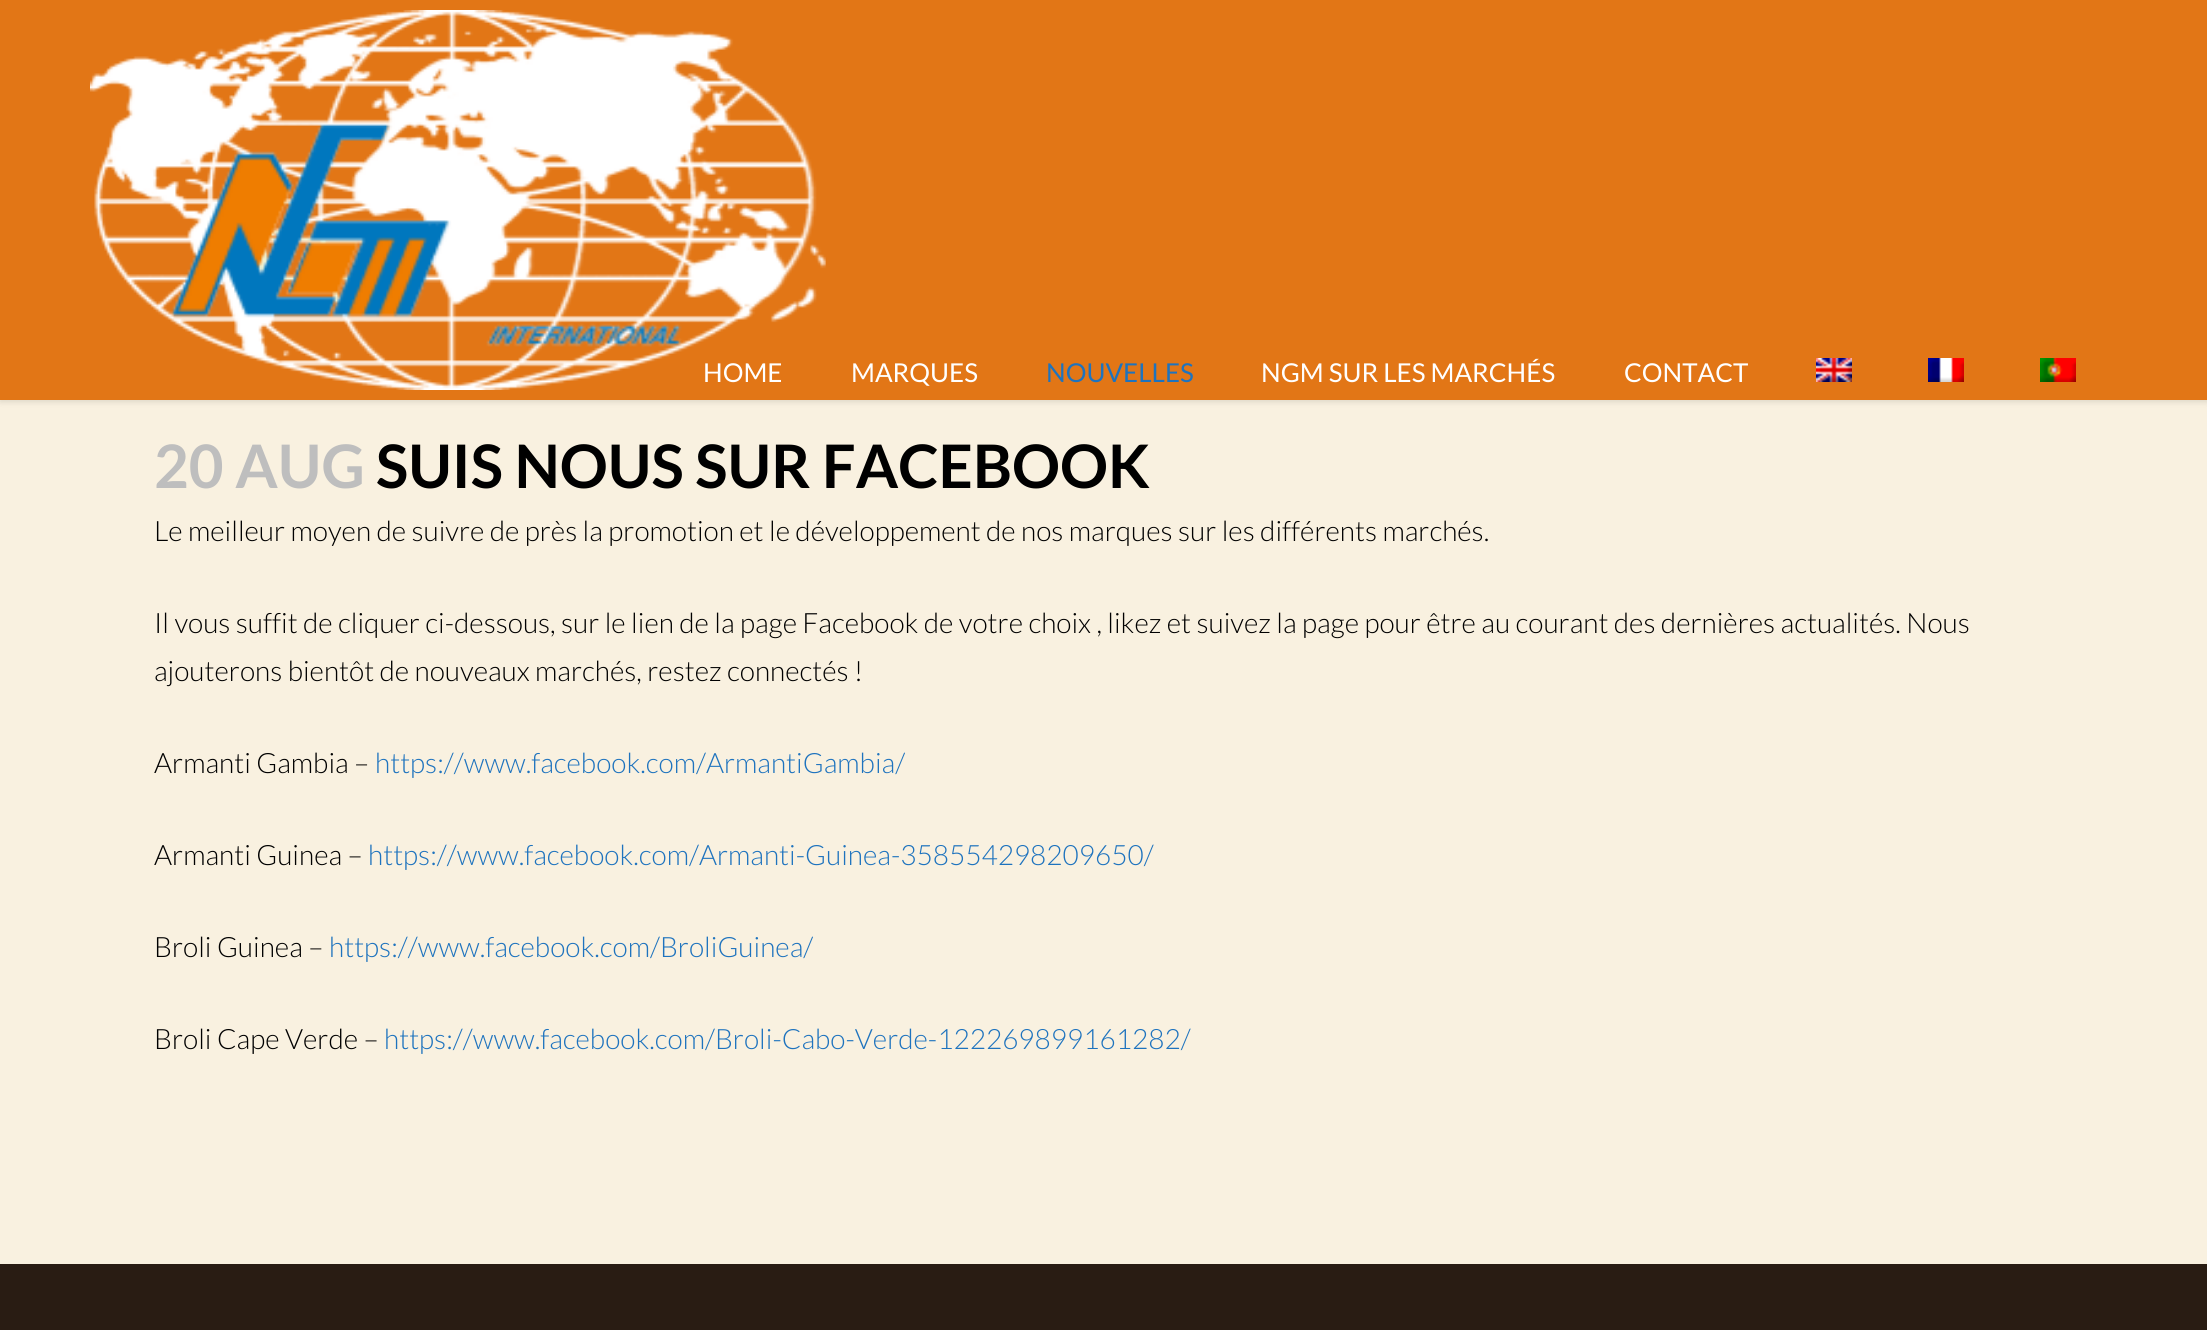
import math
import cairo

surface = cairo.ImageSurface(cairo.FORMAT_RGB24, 2207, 1330)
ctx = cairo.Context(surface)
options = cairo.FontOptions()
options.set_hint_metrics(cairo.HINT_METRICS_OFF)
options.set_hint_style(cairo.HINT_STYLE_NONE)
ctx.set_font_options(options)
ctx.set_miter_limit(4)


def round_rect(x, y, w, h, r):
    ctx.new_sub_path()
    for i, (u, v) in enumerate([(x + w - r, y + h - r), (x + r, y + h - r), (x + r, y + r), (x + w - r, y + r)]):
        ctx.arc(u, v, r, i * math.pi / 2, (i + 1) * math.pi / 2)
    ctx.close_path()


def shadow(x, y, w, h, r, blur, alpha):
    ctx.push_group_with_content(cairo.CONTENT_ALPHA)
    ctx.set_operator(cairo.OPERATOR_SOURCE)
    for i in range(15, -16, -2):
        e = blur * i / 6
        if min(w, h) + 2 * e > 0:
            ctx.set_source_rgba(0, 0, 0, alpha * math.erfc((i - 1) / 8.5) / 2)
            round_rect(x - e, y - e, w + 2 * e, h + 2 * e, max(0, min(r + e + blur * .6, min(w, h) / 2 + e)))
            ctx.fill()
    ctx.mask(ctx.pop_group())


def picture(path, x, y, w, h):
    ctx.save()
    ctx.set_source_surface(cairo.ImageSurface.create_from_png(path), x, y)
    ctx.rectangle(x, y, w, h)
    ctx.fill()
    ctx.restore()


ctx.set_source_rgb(0.976, 0.945, 0.878)
ctx.paint()
ctx.set_source_rgb(0, 0, 0)
shadow(0, 2, 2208, 400, 0, 3, 0.11)
ctx.set_source_rgb(0.886, 0.463, 0.086)
ctx.rectangle(0, 0, 2207, 400)
ctx.fill()
picture("img1.png", 90, 10, 736, 380)
ctx.select_font_face("Lato")
ctx.set_font_size(26)
ctx.set_source_rgb(1, 1, 1)
ctx.move_to(703, 382)
ctx.show_text("HOME")
ctx.move_to(851, 382)
ctx.show_text("MARQUES")
ctx.set_source_rgb(0.118, 0.451, 0.745)
ctx.move_to(1046, 382)
ctx.show_text("NOUVELLES")
ctx.set_source_rgb(1, 1, 1)
ctx.move_to(1261, 382)
ctx.show_text("NGM SUR LES MARCHÉS")
ctx.move_to(1624, 382)
ctx.show_text("CONTACT")
picture("img2.png", 1816, 358, 36, 24)
picture("img3.png", 1928, 358, 36, 24)
picture("img4.png", 2040, 358, 36, 24)
ctx.select_font_face("Lato", cairo.FONT_SLANT_NORMAL, cairo.FONT_WEIGHT_BOLD)
ctx.set_font_size(60)
ctx.set_source_rgb(0.745, 0.745, 0.745)
ctx.move_to(154, 488)
ctx.show_text("20 AUG")
ctx.set_source_rgb(0, 0, 0)
ctx.move_to(376, 488)
ctx.show_text("SUIS NOUS SUR FACEBOOK")
ctx.select_font_face("Lato Light")
ctx.set_font_size(28)
ctx.move_to(154, 541)
ctx.show_text("Le meilleur moyen de suivre de près la promotion et le développement de nos marques sur les différents marchés.")
ctx.move_to(154, 633)
ctx.show_text("Il vous suffit de cliquer ci-dessous, sur le lien de la page Facebook de votre choix , likez et suivez la page pour être au courant des dernières actualités. Nous")
ctx.move_to(154, 681)
ctx.show_text("ajouterons bientôt de nouveaux marchés, restez connectés !")
ctx.move_to(154, 773)
ctx.show_text("Armanti Gambia –")
ctx.set_source_rgb(0.118, 0.451, 0.745)
ctx.move_to(375, 773)
ctx.show_text("https://www.facebook.com/ArmantiGambia/")
ctx.set_source_rgb(0, 0, 0)
ctx.move_to(154, 865)
ctx.show_text("Armanti Guinea –")
ctx.set_source_rgb(0.118, 0.451, 0.745)
ctx.move_to(368, 865)
ctx.show_text("https://www.facebook.com/Armanti-Guinea-358554298209650/")
ctx.set_source_rgb(0, 0, 0)
ctx.move_to(154, 957)
ctx.show_text("Broli Guinea –")
ctx.set_source_rgb(0.118, 0.451, 0.745)
ctx.move_to(329, 957)
ctx.show_text("https://www.facebook.com/BroliGuinea/")
ctx.set_source_rgb(0, 0, 0)
ctx.move_to(154, 1049)
ctx.show_text("Broli Cape Verde –")
ctx.set_source_rgb(0.118, 0.451, 0.745)
ctx.move_to(384, 1049)
ctx.show_text("https://www.facebook.com/Broli-Cabo-Verde-122269899161282/")
ctx.set_source_rgb(0.161, 0.11, 0.078)
ctx.rectangle(0, 1264, 2207, 66)
ctx.fill()
surface.write_to_png("page.png")
